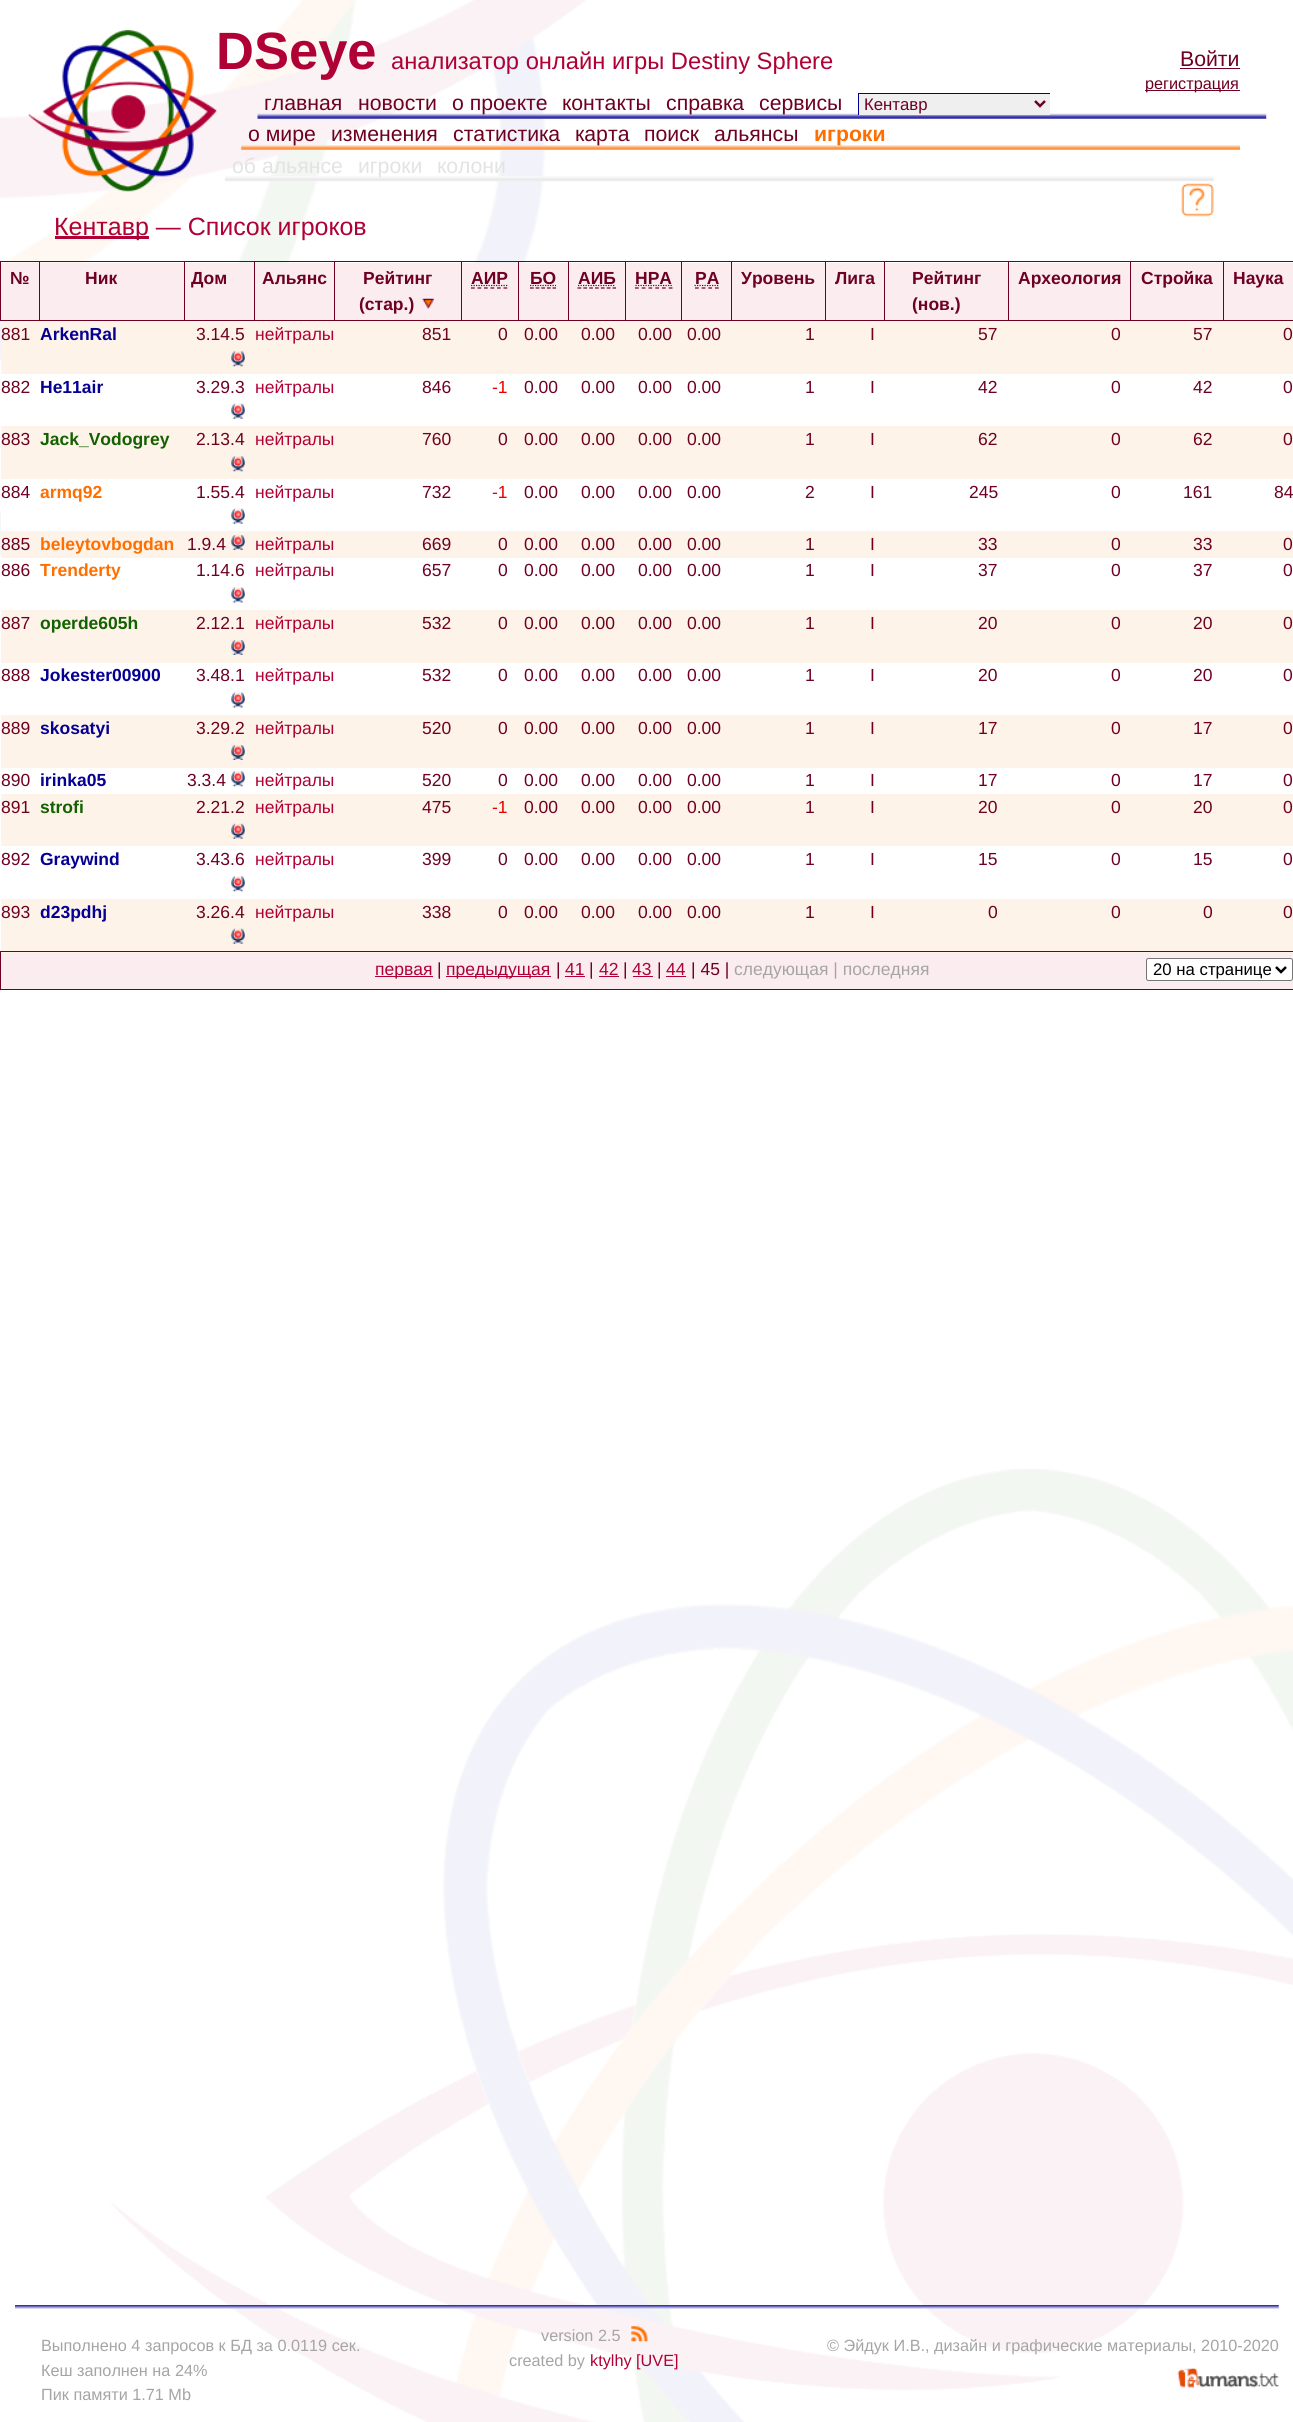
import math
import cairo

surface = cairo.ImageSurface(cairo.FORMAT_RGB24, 1293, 2422)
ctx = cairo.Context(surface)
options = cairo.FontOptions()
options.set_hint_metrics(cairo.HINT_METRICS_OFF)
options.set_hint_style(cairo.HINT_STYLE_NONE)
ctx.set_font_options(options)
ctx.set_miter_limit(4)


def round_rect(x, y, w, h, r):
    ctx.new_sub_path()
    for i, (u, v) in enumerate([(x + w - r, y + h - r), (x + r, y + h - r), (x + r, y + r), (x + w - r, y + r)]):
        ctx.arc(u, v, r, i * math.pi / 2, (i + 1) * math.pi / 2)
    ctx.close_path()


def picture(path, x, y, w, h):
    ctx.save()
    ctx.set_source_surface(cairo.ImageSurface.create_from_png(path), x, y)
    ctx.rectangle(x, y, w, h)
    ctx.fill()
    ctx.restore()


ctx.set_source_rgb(1, 1, 1)
ctx.paint()
picture("img1.png", 111, 1469, 1182, 953)
picture("img2.png", 0, 0, 586, 556)
picture("img3.png", 28, 30, 189, 162)
ctx.select_font_face("Liberation Sans", cairo.FONT_SLANT_NORMAL, cairo.FONT_WEIGHT_BOLD)
ctx.set_font_size(52.5)
ctx.set_source_rgb(0.69, 0.004, 0.216)
ctx.move_to(216, 69)
ctx.show_text("DSeye")
ctx.select_font_face("Liberation Sans")
ctx.set_font_size(23.75)
ctx.move_to(391, 69)
ctx.show_text("анализатор онлайн игры Destiny Sphere")
ctx.set_font_size(21.25)
ctx.set_source_rgb(0.431, 0, 0.133)
ctx.move_to(1180, 66)
ctx.show_text("Войти")
ctx.rectangle(1180, 68, 60, 1)
ctx.fill()
ctx.rectangle(1145, 90, 95, 1)
ctx.fill()
ctx.set_font_size(16.25)
ctx.move_to(1145, 89)
ctx.show_text("регистрация")
picture("img4.png", 257, 113, 1010, 6)
ctx.set_font_size(21.25)
ctx.move_to(264, 110)
ctx.show_text("главная")
ctx.move_to(358, 110)
ctx.show_text("новости")
ctx.move_to(452, 110)
ctx.show_text("о проекте")
ctx.move_to(562, 110)
ctx.show_text("контакты")
ctx.move_to(666, 110)
ctx.show_text("справка")
ctx.move_to(759, 110)
ctx.show_text("сервисы")
ctx.set_source_rgb(0.937, 0.937, 0.937)
ctx.rectangle(859, 94, 191, 21)
ctx.fill()
ctx.set_source_rgb(0.02, 0, 0.58)
ctx.rectangle(858, 93, 192, 1)
ctx.fill()
ctx.rectangle(858, 93, 1, 22)
ctx.fill()
ctx.new_path()
ctx.move_to(1035, 101)
ctx.line_to(1040, 106)
ctx.line_to(1045, 101)
ctx.set_source_rgb(0.431, 0, 0.133)
ctx.set_line_width(2.5)
ctx.stroke()
ctx.set_font_size(16.75)
ctx.move_to(864, 110)
ctx.show_text("Кентавр")
picture("img5.png", 241, 145, 999, 5)
ctx.set_font_size(21.25)
ctx.move_to(248, 141)
ctx.show_text("о мире")
ctx.move_to(331, 141)
ctx.show_text("изменения")
ctx.move_to(453, 141)
ctx.show_text("статистика")
ctx.move_to(575, 141)
ctx.show_text("карта")
ctx.move_to(644, 141)
ctx.show_text("поиск")
ctx.move_to(714, 141)
ctx.show_text("альянсы")
ctx.select_font_face("Liberation Sans", cairo.FONT_SLANT_NORMAL, cairo.FONT_WEIGHT_BOLD)
ctx.set_source_rgb(1, 0.435, 0)
ctx.move_to(814, 141)
ctx.show_text("игроки")
picture("img6.png", 225, 176, 989, 6)
ctx.select_font_face("Liberation Sans")
ctx.set_source_rgb(0.89, 0.89, 0.89)
ctx.move_to(232, 173)
ctx.show_text("об альянсе")
ctx.move_to(358, 173)
ctx.show_text("игроки")
ctx.move_to(437, 173)
ctx.show_text("колони")
picture("img7.png", 1181, 183, 33, 34)
ctx.set_source_rgb(0.69, 0.004, 0.216)
ctx.rectangle(55, 236, 94, 3)
ctx.fill()
ctx.set_font_size(25)
ctx.move_to(54, 235)
ctx.show_text("Кентавр — Список игроков")
ctx.set_source_rgb(0.984, 0.922, 0.937)
ctx.rectangle(1, 263, 1292, 57)
ctx.fill()
ctx.set_source_rgb(0.431, 0, 0.133)
ctx.rectangle(1223, 261, 70, 1)
ctx.fill()
ctx.rectangle(1223, 320, 70, 1)
ctx.fill()
ctx.rectangle(1223, 261, 1, 60)
ctx.fill()
ctx.rectangle(1130, 261, 94, 1)
ctx.fill()
ctx.rectangle(1130, 320, 94, 1)
ctx.fill()
ctx.rectangle(1130, 261, 1, 60)
ctx.fill()
ctx.rectangle(1008, 261, 123, 1)
ctx.fill()
ctx.rectangle(1008, 320, 123, 1)
ctx.fill()
ctx.rectangle(1008, 261, 1, 60)
ctx.fill()
ctx.rectangle(884, 261, 125, 1)
ctx.fill()
ctx.rectangle(884, 320, 125, 1)
ctx.fill()
ctx.rectangle(884, 261, 1, 60)
ctx.fill()
ctx.rectangle(825, 261, 60, 1)
ctx.fill()
ctx.rectangle(825, 320, 60, 1)
ctx.fill()
ctx.rectangle(825, 261, 1, 60)
ctx.fill()
ctx.rectangle(731, 261, 95, 1)
ctx.fill()
ctx.rectangle(731, 320, 95, 1)
ctx.fill()
ctx.rectangle(731, 261, 1, 60)
ctx.fill()
ctx.rectangle(681, 261, 52, 1)
ctx.fill()
ctx.rectangle(681, 320, 52, 1)
ctx.fill()
ctx.rectangle(681, 261, 1, 60)
ctx.fill()
ctx.rectangle(625, 261, 58, 1)
ctx.fill()
ctx.rectangle(625, 320, 58, 1)
ctx.fill()
ctx.rectangle(625, 261, 1, 60)
ctx.fill()
ctx.rectangle(568, 261, 58, 1)
ctx.fill()
ctx.rectangle(568, 320, 58, 1)
ctx.fill()
ctx.rectangle(568, 261, 1, 60)
ctx.fill()
ctx.rectangle(518, 261, 51, 1)
ctx.fill()
ctx.rectangle(518, 320, 51, 1)
ctx.fill()
ctx.rectangle(518, 261, 1, 60)
ctx.fill()
ctx.rectangle(461, 261, 58, 1)
ctx.fill()
ctx.rectangle(461, 320, 58, 1)
ctx.fill()
ctx.rectangle(461, 261, 1, 60)
ctx.fill()
ctx.rectangle(334, 261, 129, 1)
ctx.fill()
ctx.rectangle(334, 320, 129, 1)
ctx.fill()
ctx.rectangle(334, 261, 1, 60)
ctx.fill()
ctx.rectangle(254, 261, 81, 1)
ctx.fill()
ctx.rectangle(254, 320, 81, 1)
ctx.fill()
ctx.rectangle(254, 261, 1, 60)
ctx.fill()
ctx.rectangle(184, 261, 71, 1)
ctx.fill()
ctx.rectangle(184, 320, 71, 1)
ctx.fill()
ctx.rectangle(184, 261, 1, 60)
ctx.fill()
ctx.rectangle(39, 261, 146, 1)
ctx.fill()
ctx.rectangle(39, 320, 146, 1)
ctx.fill()
ctx.rectangle(39, 261, 1, 60)
ctx.fill()
ctx.rectangle(0, 261, 40, 1)
ctx.fill()
ctx.rectangle(0, 320, 40, 1)
ctx.fill()
ctx.rectangle(0, 261, 1, 60)
ctx.fill()
ctx.select_font_face("Liberation Sans", cairo.FONT_SLANT_NORMAL, cairo.FONT_WEIGHT_BOLD)
ctx.set_font_size(17.5)
ctx.move_to(10, 284)
ctx.show_text("№")
ctx.move_to(85, 284)
ctx.show_text("Ник")
ctx.move_to(191, 284)
ctx.show_text("Дом")
ctx.move_to(262, 284)
ctx.show_text("Альянс")
ctx.move_to(363, 284)
ctx.show_text("Рейтинг")
ctx.move_to(359, 310)
ctx.show_text("(стар.)")
picture("img8.png", 422, 298, 12, 11)
ctx.move_to(471, 284)
ctx.show_text("АИР")
ctx.new_path()
ctx.move_to(471, 288)
ctx.line_to(507.5, 288)
ctx.set_line_width(1.2)
ctx.set_dash([3.75, 2.75])
ctx.stroke()
ctx.new_path()
ctx.move_to(471, 285.5)
ctx.line_to(508, 285.5)
ctx.set_dash([1.25, 1.25])
ctx.stroke()
ctx.new_path()
ctx.move_to(530, 285.5)
ctx.line_to(556, 285.5)
ctx.stroke()
ctx.move_to(530, 284)
ctx.show_text("БО")
ctx.new_path()
ctx.move_to(530, 288)
ctx.line_to(556, 288)
ctx.set_dash([3.75, 1.88])
ctx.stroke()
ctx.move_to(578, 284)
ctx.show_text("АИБ")
ctx.new_path()
ctx.move_to(577.5, 288)
ctx.line_to(616, 288)
ctx.set_dash([3.75, 2.09])
ctx.stroke()
ctx.new_path()
ctx.move_to(578, 285.5)
ctx.line_to(615.5, 285.5)
ctx.set_dash([1.25, 1.25])
ctx.stroke()
ctx.move_to(635, 284)
ctx.show_text("НРА")
ctx.new_path()
ctx.move_to(635, 288)
ctx.line_to(672.5, 288)
ctx.set_dash([3.75, 3])
ctx.stroke()
ctx.new_path()
ctx.move_to(635.5, 285.5)
ctx.line_to(672.5, 285.5)
ctx.set_dash([1.25, 1.25])
ctx.stroke()
ctx.move_to(695, 284)
ctx.show_text("РА")
ctx.new_path()
ctx.move_to(695, 288)
ctx.line_to(719, 288)
ctx.set_dash([3.75, 2.91])
ctx.stroke()
ctx.new_path()
ctx.move_to(694.5, 285.5)
ctx.line_to(719, 285.5)
ctx.set_dash([1.25, 1.25])
ctx.stroke()
ctx.move_to(741, 284)
ctx.show_text("Уровень")
ctx.move_to(835, 284)
ctx.show_text("Лига")
ctx.move_to(912, 284)
ctx.show_text("Рейтинг")
ctx.move_to(912, 310)
ctx.show_text("(нов.)")
ctx.move_to(1018, 284)
ctx.show_text("Археология")
ctx.move_to(1141, 284)
ctx.show_text("Стройка")
ctx.move_to(1233, 284)
ctx.show_text("Наука")
ctx.set_source_rgb(0.996, 0.953, 0.914)
ctx.rectangle(1, 321, 1292, 53)
ctx.fill()
ctx.select_font_face("Liberation Sans")
ctx.set_source_rgb(0.431, 0, 0.133)
ctx.move_to(1, 340)
ctx.show_text("881")
ctx.select_font_face("Liberation Sans", cairo.FONT_SLANT_NORMAL, cairo.FONT_WEIGHT_BOLD)
ctx.set_source_rgb(0.02, 0, 0.58)
ctx.move_to(40, 340)
ctx.show_text("ArkenRal")
ctx.select_font_face("Liberation Sans")
ctx.set_source_rgb(0.431, 0, 0.133)
ctx.move_to(196, 340)
ctx.show_text("3.14.5")
picture("img9.png", 231, 351, 14, 16)
ctx.set_source_rgb(0.69, 0.004, 0.216)
ctx.move_to(255, 340)
ctx.show_text("нейтралы")
ctx.set_source_rgb(0.431, 0, 0.133)
ctx.move_to(422, 340)
ctx.show_text("851")
ctx.move_to(498, 340)
ctx.show_text("0")
ctx.move_to(524, 340)
ctx.show_text("0.00")
ctx.move_to(581, 340)
ctx.show_text("0.00")
ctx.move_to(638, 340)
ctx.show_text("0.00")
ctx.move_to(687, 340)
ctx.show_text("0.00")
ctx.move_to(805, 340)
ctx.show_text("1")
ctx.move_to(870, 340)
ctx.show_text("I")
ctx.move_to(978, 340)
ctx.show_text("57")
ctx.move_to(1111, 340)
ctx.show_text("0")
ctx.move_to(1193, 340)
ctx.show_text("57")
ctx.move_to(1283, 340)
ctx.show_text("0")
ctx.set_source_rgb(1, 1, 1)
ctx.rectangle(31, 374, 408, 52)
ctx.fill()
ctx.set_source_rgb(0.431, 0, 0.133)
ctx.move_to(1, 393)
ctx.show_text("882")
ctx.select_font_face("Liberation Sans", cairo.FONT_SLANT_NORMAL, cairo.FONT_WEIGHT_BOLD)
ctx.set_source_rgb(0.02, 0, 0.58)
ctx.move_to(40, 393)
ctx.show_text("He11air")
ctx.select_font_face("Liberation Sans")
ctx.set_source_rgb(0.431, 0, 0.133)
ctx.move_to(196, 393)
ctx.show_text("3.29.3")
picture("img10.png", 231, 403, 14, 16)
ctx.set_source_rgb(0.69, 0.004, 0.216)
ctx.move_to(255, 393)
ctx.show_text("нейтралы")
ctx.set_source_rgb(0.431, 0, 0.133)
ctx.move_to(422, 393)
ctx.show_text("846")
ctx.set_source_rgb(0.914, 0, 0)
ctx.move_to(492, 393)
ctx.show_text("-1")
ctx.set_source_rgb(0.431, 0, 0.133)
ctx.move_to(524, 393)
ctx.show_text("0.00")
ctx.move_to(581, 393)
ctx.show_text("0.00")
ctx.move_to(638, 393)
ctx.show_text("0.00")
ctx.move_to(687, 393)
ctx.show_text("0.00")
ctx.move_to(805, 393)
ctx.show_text("1")
ctx.move_to(870, 393)
ctx.show_text("I")
ctx.move_to(978, 393)
ctx.show_text("42")
ctx.move_to(1111, 393)
ctx.show_text("0")
ctx.move_to(1193, 393)
ctx.show_text("42")
ctx.move_to(1283, 393)
ctx.show_text("0")
ctx.set_source_rgb(0.996, 0.953, 0.914)
ctx.rectangle(1, 426, 1292, 53)
ctx.fill()
ctx.set_source_rgb(0.431, 0, 0.133)
ctx.move_to(1, 445)
ctx.show_text("883")
ctx.select_font_face("Liberation Sans", cairo.FONT_SLANT_NORMAL, cairo.FONT_WEIGHT_BOLD)
ctx.set_source_rgb(0.075, 0.38, 0)
ctx.move_to(40, 445)
ctx.show_text("Jack_Vodogrey")
ctx.select_font_face("Liberation Sans")
ctx.set_source_rgb(0.431, 0, 0.133)
ctx.move_to(196, 445)
ctx.show_text("2.13.4")
picture("img9.png", 231, 456, 14, 16)
ctx.set_source_rgb(0.69, 0.004, 0.216)
ctx.move_to(255, 445)
ctx.show_text("нейтралы")
ctx.set_source_rgb(0.431, 0, 0.133)
ctx.move_to(422, 445)
ctx.show_text("760")
ctx.move_to(498, 445)
ctx.show_text("0")
ctx.move_to(524, 445)
ctx.show_text("0.00")
ctx.move_to(581, 445)
ctx.show_text("0.00")
ctx.move_to(638, 445)
ctx.show_text("0.00")
ctx.move_to(687, 445)
ctx.show_text("0.00")
ctx.move_to(805, 445)
ctx.show_text("1")
ctx.move_to(870, 445)
ctx.show_text("I")
ctx.move_to(978, 445)
ctx.show_text("62")
ctx.move_to(1111, 445)
ctx.show_text("0")
ctx.move_to(1193, 445)
ctx.show_text("62")
ctx.move_to(1283, 445)
ctx.show_text("0")
ctx.set_source_rgb(1, 1, 1)
ctx.rectangle(1, 479, 145, 52)
ctx.fill()
ctx.set_source_rgb(0.431, 0, 0.133)
ctx.move_to(1, 498)
ctx.show_text("884")
ctx.select_font_face("Liberation Sans", cairo.FONT_SLANT_NORMAL, cairo.FONT_WEIGHT_BOLD)
ctx.set_source_rgb(1, 0.435, 0)
ctx.move_to(40, 498)
ctx.show_text("armq92")
ctx.select_font_face("Liberation Sans")
ctx.set_source_rgb(0.431, 0, 0.133)
ctx.move_to(196, 498)
ctx.show_text("1.55.4")
picture("img10.png", 231, 508, 14, 16)
ctx.set_source_rgb(0.69, 0.004, 0.216)
ctx.move_to(255, 498)
ctx.show_text("нейтралы")
ctx.set_source_rgb(0.431, 0, 0.133)
ctx.move_to(422, 498)
ctx.show_text("732")
ctx.set_source_rgb(0.914, 0, 0)
ctx.move_to(492, 498)
ctx.show_text("-1")
ctx.set_source_rgb(0.431, 0, 0.133)
ctx.move_to(524, 498)
ctx.show_text("0.00")
ctx.move_to(581, 498)
ctx.show_text("0.00")
ctx.move_to(638, 498)
ctx.show_text("0.00")
ctx.move_to(687, 498)
ctx.show_text("0.00")
ctx.move_to(805, 498)
ctx.show_text("2")
ctx.move_to(870, 498)
ctx.show_text("I")
ctx.move_to(969, 498)
ctx.show_text("245")
ctx.move_to(1111, 498)
ctx.show_text("0")
ctx.move_to(1183, 498)
ctx.show_text("161")
ctx.move_to(1274, 498)
ctx.show_text("84")
ctx.set_source_rgb(0.996, 0.953, 0.914)
ctx.rectangle(1, 531, 1292, 27)
ctx.fill()
ctx.set_source_rgb(0.431, 0, 0.133)
ctx.move_to(1, 550)
ctx.show_text("885")
ctx.select_font_face("Liberation Sans", cairo.FONT_SLANT_NORMAL, cairo.FONT_WEIGHT_BOLD)
ctx.set_source_rgb(1, 0.435, 0)
ctx.move_to(40, 550)
ctx.show_text("beleytovbogdan")
ctx.select_font_face("Liberation Sans")
ctx.set_source_rgb(0.431, 0, 0.133)
ctx.move_to(187, 550)
ctx.show_text("1.9.4")
picture("img11.png", 231, 535, 14, 15)
ctx.set_source_rgb(0.69, 0.004, 0.216)
ctx.move_to(255, 550)
ctx.show_text("нейтралы")
ctx.set_source_rgb(0.431, 0, 0.133)
ctx.move_to(422, 550)
ctx.show_text("669")
ctx.move_to(498, 550)
ctx.show_text("0")
ctx.move_to(524, 550)
ctx.show_text("0.00")
ctx.move_to(581, 550)
ctx.show_text("0.00")
ctx.move_to(638, 550)
ctx.show_text("0.00")
ctx.move_to(687, 550)
ctx.show_text("0.00")
ctx.move_to(805, 550)
ctx.show_text("1")
ctx.move_to(870, 550)
ctx.show_text("I")
ctx.move_to(978, 550)
ctx.show_text("33")
ctx.move_to(1111, 550)
ctx.show_text("0")
ctx.move_to(1193, 550)
ctx.show_text("33")
ctx.move_to(1283, 550)
ctx.show_text("0")
ctx.move_to(1, 576)
ctx.show_text("886")
ctx.select_font_face("Liberation Sans", cairo.FONT_SLANT_NORMAL, cairo.FONT_WEIGHT_BOLD)
ctx.set_source_rgb(1, 0.435, 0)
ctx.move_to(40, 576)
ctx.show_text("Trenderty")
ctx.select_font_face("Liberation Sans")
ctx.set_source_rgb(0.431, 0, 0.133)
ctx.move_to(196, 576)
ctx.show_text("1.14.6")
picture("img12.png", 231, 587, 14, 16)
ctx.set_source_rgb(0.69, 0.004, 0.216)
ctx.move_to(255, 576)
ctx.show_text("нейтралы")
ctx.set_source_rgb(0.431, 0, 0.133)
ctx.move_to(422, 576)
ctx.show_text("657")
ctx.move_to(498, 576)
ctx.show_text("0")
ctx.move_to(524, 576)
ctx.show_text("0.00")
ctx.move_to(581, 576)
ctx.show_text("0.00")
ctx.move_to(638, 576)
ctx.show_text("0.00")
ctx.move_to(687, 576)
ctx.show_text("0.00")
ctx.move_to(805, 576)
ctx.show_text("1")
ctx.move_to(870, 576)
ctx.show_text("I")
ctx.move_to(978, 576)
ctx.show_text("37")
ctx.move_to(1111, 576)
ctx.show_text("0")
ctx.move_to(1193, 576)
ctx.show_text("37")
ctx.move_to(1283, 576)
ctx.show_text("0")
ctx.set_source_rgb(0.996, 0.953, 0.914)
ctx.rectangle(1, 610, 1292, 53)
ctx.fill()
ctx.set_source_rgb(0.431, 0, 0.133)
ctx.move_to(1, 629)
ctx.show_text("887")
ctx.select_font_face("Liberation Sans", cairo.FONT_SLANT_NORMAL, cairo.FONT_WEIGHT_BOLD)
ctx.set_source_rgb(0.075, 0.38, 0)
ctx.move_to(40, 629)
ctx.show_text("operde605h")
ctx.select_font_face("Liberation Sans")
ctx.set_source_rgb(0.431, 0, 0.133)
ctx.move_to(196, 629)
ctx.show_text("2.12.1")
picture("img11.png", 231, 640, 14, 15)
ctx.set_source_rgb(0.69, 0.004, 0.216)
ctx.move_to(255, 629)
ctx.show_text("нейтралы")
ctx.set_source_rgb(0.431, 0, 0.133)
ctx.move_to(422, 629)
ctx.show_text("532")
ctx.move_to(498, 629)
ctx.show_text("0")
ctx.move_to(524, 629)
ctx.show_text("0.00")
ctx.move_to(581, 629)
ctx.show_text("0.00")
ctx.move_to(638, 629)
ctx.show_text("0.00")
ctx.move_to(687, 629)
ctx.show_text("0.00")
ctx.move_to(805, 629)
ctx.show_text("1")
ctx.move_to(870, 629)
ctx.show_text("I")
ctx.move_to(978, 629)
ctx.show_text("20")
ctx.move_to(1111, 629)
ctx.show_text("0")
ctx.move_to(1193, 629)
ctx.show_text("20")
ctx.move_to(1283, 629)
ctx.show_text("0")
ctx.move_to(1, 681)
ctx.show_text("888")
ctx.select_font_face("Liberation Sans", cairo.FONT_SLANT_NORMAL, cairo.FONT_WEIGHT_BOLD)
ctx.set_source_rgb(0.02, 0, 0.58)
ctx.move_to(40, 681)
ctx.show_text("Jokester00900")
ctx.select_font_face("Liberation Sans")
ctx.set_source_rgb(0.431, 0, 0.133)
ctx.move_to(196, 681)
ctx.show_text("3.48.1")
picture("img13.png", 231, 692, 14, 16)
ctx.set_source_rgb(0.69, 0.004, 0.216)
ctx.move_to(255, 681)
ctx.show_text("нейтралы")
ctx.set_source_rgb(0.431, 0, 0.133)
ctx.move_to(422, 681)
ctx.show_text("532")
ctx.move_to(498, 681)
ctx.show_text("0")
ctx.move_to(524, 681)
ctx.show_text("0.00")
ctx.move_to(581, 681)
ctx.show_text("0.00")
ctx.move_to(638, 681)
ctx.show_text("0.00")
ctx.move_to(687, 681)
ctx.show_text("0.00")
ctx.move_to(805, 681)
ctx.show_text("1")
ctx.move_to(870, 681)
ctx.show_text("I")
ctx.move_to(978, 681)
ctx.show_text("20")
ctx.move_to(1111, 681)
ctx.show_text("0")
ctx.move_to(1193, 681)
ctx.show_text("20")
ctx.move_to(1283, 681)
ctx.show_text("0")
ctx.set_source_rgb(0.996, 0.953, 0.914)
ctx.rectangle(1, 715, 1292, 53)
ctx.fill()
ctx.set_source_rgb(0.431, 0, 0.133)
ctx.move_to(1, 734)
ctx.show_text("889")
ctx.select_font_face("Liberation Sans", cairo.FONT_SLANT_NORMAL, cairo.FONT_WEIGHT_BOLD)
ctx.set_source_rgb(0.02, 0, 0.58)
ctx.move_to(40, 734)
ctx.show_text("skosatyi")
ctx.select_font_face("Liberation Sans")
ctx.set_source_rgb(0.431, 0, 0.133)
ctx.move_to(196, 734)
ctx.show_text("3.29.2")
picture("img11.png", 231, 745, 14, 15)
ctx.set_source_rgb(0.69, 0.004, 0.216)
ctx.move_to(255, 734)
ctx.show_text("нейтралы")
ctx.set_source_rgb(0.431, 0, 0.133)
ctx.move_to(422, 734)
ctx.show_text("520")
ctx.move_to(498, 734)
ctx.show_text("0")
ctx.move_to(524, 734)
ctx.show_text("0.00")
ctx.move_to(581, 734)
ctx.show_text("0.00")
ctx.move_to(638, 734)
ctx.show_text("0.00")
ctx.move_to(687, 734)
ctx.show_text("0.00")
ctx.move_to(805, 734)
ctx.show_text("1")
ctx.move_to(870, 734)
ctx.show_text("I")
ctx.move_to(978, 734)
ctx.show_text("17")
ctx.move_to(1111, 734)
ctx.show_text("0")
ctx.move_to(1193, 734)
ctx.show_text("17")
ctx.move_to(1283, 734)
ctx.show_text("0")
ctx.move_to(1, 786)
ctx.show_text("890")
ctx.select_font_face("Liberation Sans", cairo.FONT_SLANT_NORMAL, cairo.FONT_WEIGHT_BOLD)
ctx.set_source_rgb(0.02, 0, 0.58)
ctx.move_to(40, 786)
ctx.show_text("irinka05")
ctx.select_font_face("Liberation Sans")
ctx.set_source_rgb(0.431, 0, 0.133)
ctx.move_to(187, 786)
ctx.show_text("3.3.4")
picture("img14.png", 231, 771, 14, 16)
ctx.set_source_rgb(0.69, 0.004, 0.216)
ctx.move_to(255, 786)
ctx.show_text("нейтралы")
ctx.set_source_rgb(0.431, 0, 0.133)
ctx.move_to(422, 786)
ctx.show_text("520")
ctx.move_to(498, 786)
ctx.show_text("0")
ctx.move_to(524, 786)
ctx.show_text("0.00")
ctx.move_to(581, 786)
ctx.show_text("0.00")
ctx.move_to(638, 786)
ctx.show_text("0.00")
ctx.move_to(687, 786)
ctx.show_text("0.00")
ctx.move_to(805, 786)
ctx.show_text("1")
ctx.move_to(870, 786)
ctx.show_text("I")
ctx.move_to(978, 786)
ctx.show_text("17")
ctx.move_to(1111, 786)
ctx.show_text("0")
ctx.move_to(1193, 786)
ctx.show_text("17")
ctx.move_to(1283, 786)
ctx.show_text("0")
ctx.set_source_rgb(0.996, 0.953, 0.914)
ctx.rectangle(1, 794, 1292, 52)
ctx.fill()
ctx.set_source_rgb(0.431, 0, 0.133)
ctx.move_to(1, 813)
ctx.show_text("891")
ctx.select_font_face("Liberation Sans", cairo.FONT_SLANT_NORMAL, cairo.FONT_WEIGHT_BOLD)
ctx.set_source_rgb(0.075, 0.38, 0)
ctx.move_to(40, 813)
ctx.show_text("strofi")
ctx.select_font_face("Liberation Sans")
ctx.set_source_rgb(0.431, 0, 0.133)
ctx.move_to(196, 813)
ctx.show_text("2.21.2")
picture("img15.png", 231, 823, 14, 16)
ctx.set_source_rgb(0.69, 0.004, 0.216)
ctx.move_to(255, 813)
ctx.show_text("нейтралы")
ctx.set_source_rgb(0.431, 0, 0.133)
ctx.move_to(422, 813)
ctx.show_text("475")
ctx.set_source_rgb(0.914, 0, 0)
ctx.move_to(492, 813)
ctx.show_text("-1")
ctx.set_source_rgb(0.431, 0, 0.133)
ctx.move_to(524, 813)
ctx.show_text("0.00")
ctx.move_to(581, 813)
ctx.show_text("0.00")
ctx.move_to(638, 813)
ctx.show_text("0.00")
ctx.move_to(687, 813)
ctx.show_text("0.00")
ctx.move_to(805, 813)
ctx.show_text("1")
ctx.move_to(870, 813)
ctx.show_text("I")
ctx.move_to(978, 813)
ctx.show_text("20")
ctx.move_to(1111, 813)
ctx.show_text("0")
ctx.move_to(1193, 813)
ctx.show_text("20")
ctx.move_to(1283, 813)
ctx.show_text("0")
ctx.move_to(1, 865)
ctx.show_text("892")
ctx.select_font_face("Liberation Sans", cairo.FONT_SLANT_NORMAL, cairo.FONT_WEIGHT_BOLD)
ctx.set_source_rgb(0.02, 0, 0.58)
ctx.move_to(40, 865)
ctx.show_text("Graywind")
ctx.select_font_face("Liberation Sans")
ctx.set_source_rgb(0.431, 0, 0.133)
ctx.move_to(196, 865)
ctx.show_text("3.43.6")
picture("img14.png", 231, 876, 14, 16)
ctx.set_source_rgb(0.69, 0.004, 0.216)
ctx.move_to(255, 865)
ctx.show_text("нейтралы")
ctx.set_source_rgb(0.431, 0, 0.133)
ctx.move_to(422, 865)
ctx.show_text("399")
ctx.move_to(498, 865)
ctx.show_text("0")
ctx.move_to(524, 865)
ctx.show_text("0.00")
ctx.move_to(581, 865)
ctx.show_text("0.00")
ctx.move_to(638, 865)
ctx.show_text("0.00")
ctx.move_to(687, 865)
ctx.show_text("0.00")
ctx.move_to(805, 865)
ctx.show_text("1")
ctx.move_to(870, 865)
ctx.show_text("I")
ctx.move_to(978, 865)
ctx.show_text("15")
ctx.move_to(1111, 865)
ctx.show_text("0")
ctx.move_to(1193, 865)
ctx.show_text("15")
ctx.move_to(1283, 865)
ctx.show_text("0")
ctx.set_source_rgb(0.996, 0.953, 0.914)
ctx.rectangle(1, 899, 1292, 54)
ctx.fill()
ctx.set_source_rgb(0.431, 0, 0.133)
ctx.move_to(1, 918)
ctx.show_text("893")
ctx.select_font_face("Liberation Sans", cairo.FONT_SLANT_NORMAL, cairo.FONT_WEIGHT_BOLD)
ctx.set_source_rgb(0.02, 0, 0.58)
ctx.move_to(40, 918)
ctx.show_text("d23pdhj")
ctx.select_font_face("Liberation Sans")
ctx.set_source_rgb(0.431, 0, 0.133)
ctx.move_to(196, 918)
ctx.show_text("3.26.4")
picture("img15.png", 231, 928, 14, 16)
ctx.set_source_rgb(0.69, 0.004, 0.216)
ctx.move_to(255, 918)
ctx.show_text("нейтралы")
ctx.set_source_rgb(0.431, 0, 0.133)
ctx.move_to(422, 918)
ctx.show_text("338")
ctx.move_to(498, 918)
ctx.show_text("0")
ctx.move_to(524, 918)
ctx.show_text("0.00")
ctx.move_to(581, 918)
ctx.show_text("0.00")
ctx.move_to(638, 918)
ctx.show_text("0.00")
ctx.move_to(687, 918)
ctx.show_text("0.00")
ctx.move_to(805, 918)
ctx.show_text("1")
ctx.move_to(870, 918)
ctx.show_text("I")
ctx.move_to(988, 918)
ctx.show_text("0")
ctx.move_to(1111, 918)
ctx.show_text("0")
ctx.move_to(1203, 918)
ctx.show_text("0")
ctx.move_to(1283, 918)
ctx.show_text("0")
ctx.set_source_rgb(0.984, 0.922, 0.937)
ctx.rectangle(1, 953, 1292, 36)
ctx.fill()
ctx.set_source_rgb(0.431, 0, 0.133)
ctx.rectangle(0, 951, 1293, 1)
ctx.fill()
ctx.rectangle(0, 989, 1293, 1)
ctx.fill()
ctx.rectangle(0, 951, 1, 39)
ctx.fill()
ctx.set_source_rgb(0.69, 0.004, 0.216)
ctx.rectangle(375, 976, 58, 1)
ctx.fill()
ctx.move_to(375, 975)
ctx.show_text("первая")
ctx.set_source_rgb(0.431, 0, 0.133)
ctx.move_to(437, 975)
ctx.show_text("|")
ctx.set_source_rgb(0.69, 0.004, 0.216)
ctx.rectangle(446, 976, 105, 1)
ctx.fill()
ctx.move_to(446, 975)
ctx.show_text("предыдущая")
ctx.set_source_rgb(0.431, 0, 0.133)
ctx.move_to(556, 975)
ctx.show_text("|")
ctx.set_source_rgb(0.69, 0.004, 0.216)
ctx.move_to(565, 975)
ctx.show_text("41")
ctx.rectangle(565, 976, 20, 1)
ctx.fill()
ctx.set_source_rgb(0.431, 0, 0.133)
ctx.move_to(589, 975)
ctx.show_text("|")
ctx.set_source_rgb(0.69, 0.004, 0.216)
ctx.move_to(599, 975)
ctx.show_text("42")
ctx.rectangle(599, 976, 20, 1)
ctx.fill()
ctx.set_source_rgb(0.431, 0, 0.133)
ctx.move_to(623, 975)
ctx.show_text("|")
ctx.set_source_rgb(0.69, 0.004, 0.216)
ctx.move_to(632, 975)
ctx.show_text("43")
ctx.rectangle(633, 976, 20, 1)
ctx.fill()
ctx.set_source_rgb(0.431, 0, 0.133)
ctx.move_to(657, 975)
ctx.show_text("|")
ctx.set_source_rgb(0.69, 0.004, 0.216)
ctx.move_to(666, 975)
ctx.show_text("44")
ctx.rectangle(666, 976, 20, 1)
ctx.fill()
ctx.set_source_rgb(0.431, 0, 0.133)
ctx.move_to(691, 975)
ctx.show_text("| 45 |")
ctx.set_source_rgb(0.647, 0.647, 0.647)
ctx.move_to(734, 975)
ctx.show_text("следующая | последняя")
ctx.set_source_rgb(1, 1, 1)
round_rect(1146.5, 958.5, 146, 22, 2)
ctx.fill_preserve()
ctx.set_source_rgb(0.463, 0.463, 0.463)
ctx.set_line_width(1)
ctx.set_dash([])
ctx.stroke()
ctx.new_path()
ctx.move_to(1276, 967)
ctx.line_to(1281, 972)
ctx.line_to(1286, 967)
ctx.set_source_rgb(0, 0, 0)
ctx.set_line_width(2.5)
ctx.stroke()
ctx.set_font_size(16.75)
ctx.move_to(1153, 975)
ctx.show_text("20 на странице")
picture("img16.png", 15, 2305, 1264, 4)
ctx.set_font_size(16.25)
ctx.set_source_rgb(0.647, 0.647, 0.647)
ctx.move_to(41, 2351)
ctx.show_text("Выполнено 4 запросов к БД за 0.0119 сек.")
ctx.move_to(41, 2376)
ctx.show_text("Кеш заполнен на 24%")
ctx.move_to(41, 2400)
ctx.show_text("Пик памяти 1.71 Mb")
ctx.move_to(541, 2341)
ctx.show_text("version 2.5")
picture("img17.png", 631, 2326, 17, 16)
ctx.move_to(509, 2366)
ctx.show_text("created by")
ctx.set_source_rgb(0.69, 0.004, 0.216)
ctx.move_to(590, 2366)
ctx.show_text("ktylhy [UVE]")
ctx.set_source_rgb(0.647, 0.647, 0.647)
ctx.move_to(827, 2351)
ctx.show_text("© Эйдук И.В., дизайн и графические материалы, 2010-2020")
picture("img18.png", 1177, 2367, 102, 21)
surface.write_to_png("page.png")
